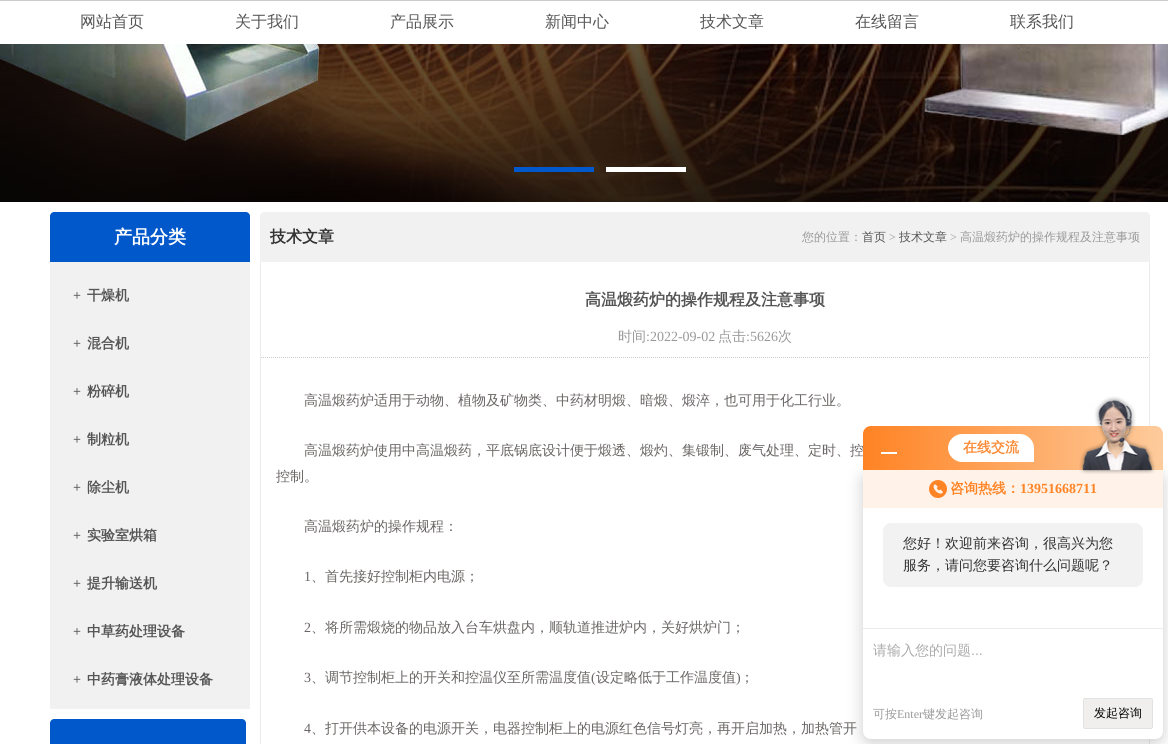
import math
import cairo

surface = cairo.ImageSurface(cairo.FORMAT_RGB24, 1168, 744)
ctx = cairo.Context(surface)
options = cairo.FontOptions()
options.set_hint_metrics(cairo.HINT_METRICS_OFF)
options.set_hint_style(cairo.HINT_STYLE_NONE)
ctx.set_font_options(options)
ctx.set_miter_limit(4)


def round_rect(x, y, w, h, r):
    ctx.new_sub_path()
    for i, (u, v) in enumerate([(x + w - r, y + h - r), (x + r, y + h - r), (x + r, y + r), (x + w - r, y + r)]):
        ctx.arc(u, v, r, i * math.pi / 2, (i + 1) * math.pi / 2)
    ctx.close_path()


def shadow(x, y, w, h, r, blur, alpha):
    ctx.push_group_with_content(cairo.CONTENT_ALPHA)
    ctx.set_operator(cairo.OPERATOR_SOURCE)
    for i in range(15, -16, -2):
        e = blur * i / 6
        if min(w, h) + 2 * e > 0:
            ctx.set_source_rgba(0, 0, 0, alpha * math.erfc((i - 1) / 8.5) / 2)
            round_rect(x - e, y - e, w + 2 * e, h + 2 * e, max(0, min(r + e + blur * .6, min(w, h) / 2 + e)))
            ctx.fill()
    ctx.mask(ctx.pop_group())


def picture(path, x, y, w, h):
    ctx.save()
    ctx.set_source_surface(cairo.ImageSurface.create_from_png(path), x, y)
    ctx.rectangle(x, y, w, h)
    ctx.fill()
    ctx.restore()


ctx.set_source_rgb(1, 1, 1)
ctx.paint()
ctx.set_source_rgb(0.8, 0.8, 0.8)
ctx.rectangle(0, 0, 1168, 1)
ctx.fill()
ctx.select_font_face("WenQuanYi Zen Hei Medium")
ctx.set_font_size(16)
ctx.set_source_rgb(0.333, 0.333, 0.333)
ctx.move_to(80, 27)
ctx.show_text("网站首页")
ctx.move_to(235, 27)
ctx.show_text("关于我们")
ctx.move_to(390, 27)
ctx.show_text("产品展示")
ctx.move_to(545, 27)
ctx.show_text("新闻中心")
ctx.move_to(700, 27)
ctx.show_text("技术文章")
ctx.move_to(855, 27)
ctx.show_text("在线留言")
ctx.move_to(1010, 27)
ctx.show_text("联系我们")
picture("img1.png", 0, 44, 1168, 158)
ctx.set_source_rgb(0.004, 0.345, 0.796)
ctx.rectangle(514, 167, 80, 5)
ctx.fill()
ctx.set_source_rgb(1, 1, 1)
ctx.rectangle(606, 167, 80, 5)
ctx.fill()
ctx.set_source_rgb(0.004, 0.345, 0.796)
ctx.new_path()
ctx.move_to(54, 212)
ctx.line_to(246, 212)
ctx.curve_to(248, 212, 250, 214, 250, 216)
ctx.line_to(250, 262)
ctx.line_to(50, 262)
ctx.line_to(50, 216)
ctx.curve_to(50, 214, 52, 212, 54, 212)
ctx.close_path()
ctx.fill()
ctx.select_font_face("WenQuanYi Zen Hei", cairo.FONT_SLANT_NORMAL, cairo.FONT_WEIGHT_BOLD)
ctx.set_font_size(18)
ctx.set_source_rgb(1, 1, 1)
ctx.move_to(114, 243)
ctx.show_text("产品分类")
ctx.set_source_rgb(0.945, 0.945, 0.945)
ctx.rectangle(50, 262, 200, 447)
ctx.fill()
ctx.select_font_face("Liberation Serif", cairo.FONT_SLANT_NORMAL, cairo.FONT_WEIGHT_BOLD)
ctx.set_font_size(14)
ctx.set_source_rgb(0.412, 0.396, 0.392)
ctx.move_to(73, 300)
ctx.show_text("+")
ctx.select_font_face("WenQuanYi Zen Hei", cairo.FONT_SLANT_NORMAL, cairo.FONT_WEIGHT_BOLD)
ctx.set_source_rgb(0.333, 0.333, 0.333)
ctx.move_to(87, 300)
ctx.show_text("干燥机")
ctx.select_font_face("Liberation Serif", cairo.FONT_SLANT_NORMAL, cairo.FONT_WEIGHT_BOLD)
ctx.set_source_rgb(0.412, 0.396, 0.392)
ctx.move_to(73, 348)
ctx.show_text("+")
ctx.save()
round_rect(87, 325, 156, 38, 19)
ctx.clip()
ctx.select_font_face("WenQuanYi Zen Hei", cairo.FONT_SLANT_NORMAL, cairo.FONT_WEIGHT_BOLD)
ctx.set_source_rgb(0.333, 0.333, 0.333)
ctx.move_to(87, 348)
ctx.show_text("混合机")
ctx.restore()
ctx.move_to(73, 396)
ctx.show_text("+")
ctx.select_font_face("WenQuanYi Zen Hei", cairo.FONT_SLANT_NORMAL, cairo.FONT_WEIGHT_BOLD)
ctx.set_source_rgb(0.333, 0.333, 0.333)
ctx.move_to(87, 396)
ctx.show_text("粉碎机")
ctx.select_font_face("Liberation Serif", cairo.FONT_SLANT_NORMAL, cairo.FONT_WEIGHT_BOLD)
ctx.set_source_rgb(0.412, 0.396, 0.392)
ctx.move_to(73, 444)
ctx.show_text("+")
ctx.select_font_face("WenQuanYi Zen Hei", cairo.FONT_SLANT_NORMAL, cairo.FONT_WEIGHT_BOLD)
ctx.set_source_rgb(0.333, 0.333, 0.333)
ctx.move_to(87, 444)
ctx.show_text("制粒机")
ctx.select_font_face("Liberation Serif", cairo.FONT_SLANT_NORMAL, cairo.FONT_WEIGHT_BOLD)
ctx.set_source_rgb(0.412, 0.396, 0.392)
ctx.move_to(73, 492)
ctx.show_text("+")
ctx.save()
round_rect(87, 469, 156, 38, 19)
ctx.clip()
ctx.select_font_face("WenQuanYi Zen Hei", cairo.FONT_SLANT_NORMAL, cairo.FONT_WEIGHT_BOLD)
ctx.set_source_rgb(0.333, 0.333, 0.333)
ctx.move_to(87, 492)
ctx.show_text("除尘机")
ctx.restore()
ctx.move_to(73, 540)
ctx.show_text("+")
ctx.select_font_face("WenQuanYi Zen Hei", cairo.FONT_SLANT_NORMAL, cairo.FONT_WEIGHT_BOLD)
ctx.set_source_rgb(0.333, 0.333, 0.333)
ctx.move_to(87, 540)
ctx.show_text("实验室烘箱")
ctx.select_font_face("Liberation Serif", cairo.FONT_SLANT_NORMAL, cairo.FONT_WEIGHT_BOLD)
ctx.set_source_rgb(0.412, 0.396, 0.392)
ctx.move_to(73, 588)
ctx.show_text("+")
ctx.select_font_face("WenQuanYi Zen Hei", cairo.FONT_SLANT_NORMAL, cairo.FONT_WEIGHT_BOLD)
ctx.set_source_rgb(0.333, 0.333, 0.333)
ctx.move_to(87, 588)
ctx.show_text("提升输送机")
ctx.select_font_face("Liberation Serif", cairo.FONT_SLANT_NORMAL, cairo.FONT_WEIGHT_BOLD)
ctx.set_source_rgb(0.412, 0.396, 0.392)
ctx.move_to(73, 636)
ctx.show_text("+")
ctx.select_font_face("WenQuanYi Zen Hei", cairo.FONT_SLANT_NORMAL, cairo.FONT_WEIGHT_BOLD)
ctx.set_source_rgb(0.333, 0.333, 0.333)
ctx.move_to(87, 636)
ctx.show_text("中草药处理设备")
ctx.select_font_face("Liberation Serif", cairo.FONT_SLANT_NORMAL, cairo.FONT_WEIGHT_BOLD)
ctx.set_source_rgb(0.412, 0.396, 0.392)
ctx.move_to(73, 684)
ctx.show_text("+")
ctx.select_font_face("WenQuanYi Zen Hei", cairo.FONT_SLANT_NORMAL, cairo.FONT_WEIGHT_BOLD)
ctx.set_source_rgb(0.333, 0.333, 0.333)
ctx.move_to(87, 684)
ctx.show_text("中药膏液体处理设备")
ctx.set_source_rgb(0.004, 0.345, 0.796)
ctx.new_path()
ctx.move_to(54, 719)
ctx.line_to(242, 719)
ctx.curve_to(244, 719, 246, 721, 246, 723)
ctx.line_to(246, 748)
ctx.line_to(50, 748)
ctx.line_to(50, 723)
ctx.curve_to(50, 721, 52, 719, 54, 719)
ctx.close_path()
ctx.fill()
ctx.set_source_rgb(0.945, 0.945, 0.945)
ctx.new_path()
ctx.move_to(264, 212)
ctx.line_to(1146, 212)
ctx.curve_to(1148, 212, 1150, 214, 1150, 216)
ctx.line_to(1150, 262)
ctx.line_to(260, 262)
ctx.line_to(260, 216)
ctx.curve_to(260, 214, 262, 212, 264, 212)
ctx.close_path()
ctx.fill()
ctx.set_font_size(16)
ctx.set_source_rgb(0.2, 0.2, 0.2)
ctx.move_to(270, 242)
ctx.show_text("技术文章")
ctx.select_font_face("WenQuanYi Zen Hei Medium")
ctx.set_font_size(12)
ctx.set_source_rgb(0.6, 0.6, 0.6)
ctx.move_to(802, 241)
ctx.show_text("您的位置：")
ctx.set_source_rgb(0.333, 0.333, 0.333)
ctx.move_to(862, 241)
ctx.show_text("首页")
ctx.select_font_face("Liberation Serif")
ctx.set_source_rgb(0.6, 0.6, 0.6)
ctx.move_to(889, 241)
ctx.show_text(">")
ctx.select_font_face("WenQuanYi Zen Hei Medium")
ctx.set_source_rgb(0.333, 0.333, 0.333)
ctx.move_to(899, 241)
ctx.show_text("技术文章")
ctx.select_font_face("Liberation Serif")
ctx.set_source_rgb(0.6, 0.6, 0.6)
ctx.move_to(950, 241)
ctx.show_text(">")
ctx.select_font_face("WenQuanYi Zen Hei Medium")
ctx.move_to(960, 241)
ctx.show_text("高温煅药炉的操作规程及注意事项")
ctx.set_source_rgb(0.918, 0.918, 0.918)
ctx.rectangle(1149, 262, 1, 482)
ctx.fill()
ctx.rectangle(260, 262, 1, 482)
ctx.fill()
ctx.select_font_face("WenQuanYi Zen Hei", cairo.FONT_SLANT_NORMAL, cairo.FONT_WEIGHT_BOLD)
ctx.set_font_size(16)
ctx.set_source_rgb(0.333, 0.333, 0.333)
ctx.move_to(585, 305)
ctx.show_text("高温煅药炉的操作规程及注意事项")
ctx.new_path()
ctx.move_to(261, 357.5)
ctx.line_to(1149, 357.5)
ctx.set_source_rgb(0.8, 0.8, 0.8)
ctx.set_line_width(1)
ctx.set_dash([1, 1])
ctx.stroke()
ctx.select_font_face("WenQuanYi Zen Hei Medium")
ctx.set_font_size(14)
ctx.set_source_rgb(0.6, 0.6, 0.6)
ctx.move_to(618, 341)
ctx.show_text("时间")
ctx.select_font_face("Liberation Serif")
ctx.move_to(646, 341)
ctx.show_text(":2022-09-02")
ctx.select_font_face("WenQuanYi Zen Hei Medium")
ctx.move_to(718, 341)
ctx.show_text("点击")
ctx.select_font_face("Liberation Serif")
ctx.move_to(746, 341)
ctx.show_text(":5626")
ctx.select_font_face("WenQuanYi Zen Hei Medium")
ctx.move_to(778, 341)
ctx.show_text("次")
ctx.set_source_rgb(0.412, 0.396, 0.392)
ctx.move_to(304, 405)
ctx.show_text("高温煅药炉适用于动物、植物及矿物类、中药材明煅、暗煅、煅淬，也可用于化工行业。")
ctx.move_to(304, 455)
ctx.show_text("高温煅药炉使用中高温煅药，平底锅底设计便于煅透、煅灼、集锻制、废气处理、定时、控")
ctx.move_to(276, 481)
ctx.show_text("控制。")
ctx.move_to(304, 531)
ctx.show_text("高温煅药炉的操作规程：")
ctx.select_font_face("Liberation Serif")
ctx.move_to(304, 581)
ctx.show_text("1")
ctx.select_font_face("WenQuanYi Zen Hei Medium")
ctx.move_to(311, 581)
ctx.show_text("、首先接好控制柜内电源；")
ctx.select_font_face("Liberation Serif")
ctx.move_to(304, 632)
ctx.show_text("2")
ctx.select_font_face("WenQuanYi Zen Hei Medium")
ctx.move_to(311, 632)
ctx.show_text("、将所需煅烧的物品放入台车烘盘内，顺轨道推进炉内，关好烘炉门；")
ctx.select_font_face("Liberation Serif")
ctx.move_to(304, 682)
ctx.show_text("3")
ctx.select_font_face("WenQuanYi Zen Hei Medium")
ctx.move_to(311, 682)
ctx.show_text("、调节控制柜上的开关和控温仪至所需温度值")
ctx.select_font_face("Liberation Serif")
ctx.move_to(591, 682)
ctx.show_text("(")
ctx.select_font_face("WenQuanYi Zen Hei Medium")
ctx.move_to(596, 682)
ctx.show_text("设定略低于工作温度值")
ctx.select_font_face("Liberation Serif")
ctx.move_to(736, 682)
ctx.show_text(")")
ctx.select_font_face("WenQuanYi Zen Hei Medium")
ctx.move_to(740, 682)
ctx.show_text("；")
ctx.select_font_face("Liberation Serif")
ctx.move_to(304, 733)
ctx.show_text("4")
ctx.select_font_face("WenQuanYi Zen Hei Medium")
ctx.move_to(311, 733)
ctx.show_text("、打开供本设备的电源开关，电器控制柜上的电源红色信号灯亮，再开启加热，加热管开")
ctx.set_source_rgb(0, 0, 0)
shadow(863, 474, 300, 269, 8, 8, 0.2)
gradient = cairo.LinearGradient(863, 448, 1163, 448)
gradient.add_color_stop_rgba(0, 1, 0.514, 0.141, 1)
gradient.add_color_stop_rgba(1, 0.996, 0.796, 0.612, 1)
ctx.set_source(gradient)
ctx.new_path()
ctx.move_to(871, 426)
ctx.line_to(1155, 426)
ctx.curve_to(1159.5, 426, 1163, 429.5, 1163, 434)
ctx.line_to(1163, 470)
ctx.line_to(863, 470)
ctx.line_to(863, 434)
ctx.curve_to(863, 429.5, 866.5, 426, 871, 426)
ctx.close_path()
ctx.fill()
ctx.set_source_rgb(1, 1, 1)
ctx.rectangle(881, 452, 16, 2)
ctx.fill()
ctx.new_path()
ctx.move_to(962, 434)
ctx.line_to(1020, 434)
ctx.curve_to(1027.5, 434, 1034, 440.5, 1034, 448)
ctx.line_to(1034, 462)
ctx.line_to(962, 462)
ctx.curve_to(954.5, 462, 948, 455.5, 948, 448)
ctx.curve_to(948, 440.5, 954.5, 434, 962, 434)
ctx.close_path()
ctx.fill()
ctx.select_font_face("WenQuanYi Zen Hei", cairo.FONT_SLANT_NORMAL, cairo.FONT_WEIGHT_BOLD)
ctx.set_source_rgb(0.984, 0.545, 0.212)
ctx.move_to(963, 452)
ctx.show_text("在线交流")
ctx.set_source_rgb(1, 1, 1)
ctx.new_path()
ctx.move_to(863, 470)
ctx.line_to(1163, 470)
ctx.line_to(1163, 731)
ctx.curve_to(1163, 735.5, 1159.5, 739, 1155, 739)
ctx.line_to(871, 739)
ctx.curve_to(866.5, 739, 863, 735.5, 863, 731)
ctx.close_path()
ctx.fill()
ctx.set_source_rgb(1, 0.953, 0.914)
ctx.rectangle(863, 470, 300, 38)
ctx.fill()
picture("img2.png", 1079, 396, 76, 78)
picture("img3.png", 929, 480, 18, 18)
ctx.set_source_rgb(1, 0.518, 0.149)
ctx.move_to(950, 493)
ctx.show_text("咨询热线：")
ctx.select_font_face("Liberation Serif", cairo.FONT_SLANT_NORMAL, cairo.FONT_WEIGHT_BOLD)
ctx.move_to(1020, 493)
ctx.show_text("13951668711")
ctx.set_source_rgb(0.949, 0.949, 0.949)
round_rect(883, 523, 260, 64, 8)
ctx.fill()
ctx.select_font_face("WenQuanYi Zen Hei Medium")
ctx.set_source_rgb(0.2, 0.2, 0.2)
ctx.move_to(903, 548)
ctx.show_text("您好！欢迎前来咨询，很高兴为您")
ctx.move_to(903, 570)
ctx.show_text("服务，请问您要咨询什么问题呢？")
ctx.set_source_rgb(0.918, 0.918, 0.918)
ctx.rectangle(863, 628, 300, 1)
ctx.fill()
ctx.set_source_rgb(0.667, 0.667, 0.667)
ctx.move_to(873, 655)
ctx.show_text("请输入您的问题")
ctx.select_font_face("Liberation Sans")
ctx.move_to(971, 655)
ctx.show_text("...")
ctx.select_font_face("WenQuanYi Zen Hei Medium")
ctx.set_font_size(12)
ctx.set_source_rgb(0.6, 0.6, 0.6)
ctx.move_to(873, 718)
ctx.show_text("可按")
ctx.select_font_face("Liberation Serif")
ctx.move_to(897, 718)
ctx.show_text("Enter")
ctx.select_font_face("WenQuanYi Zen Hei Medium")
ctx.move_to(923, 718)
ctx.show_text("键发起咨询")
ctx.set_source_rgb(0.941, 0.937, 0.929)
round_rect(1083.5, 698.5, 69, 30, 1.5)
ctx.fill_preserve()
ctx.set_source_rgb(0.886, 0.886, 0.886)
ctx.set_dash([])
ctx.stroke()
ctx.set_source_rgb(0, 0, 0)
ctx.move_to(1094, 717)
ctx.show_text("发起咨询")
surface.write_to_png("page.png")
